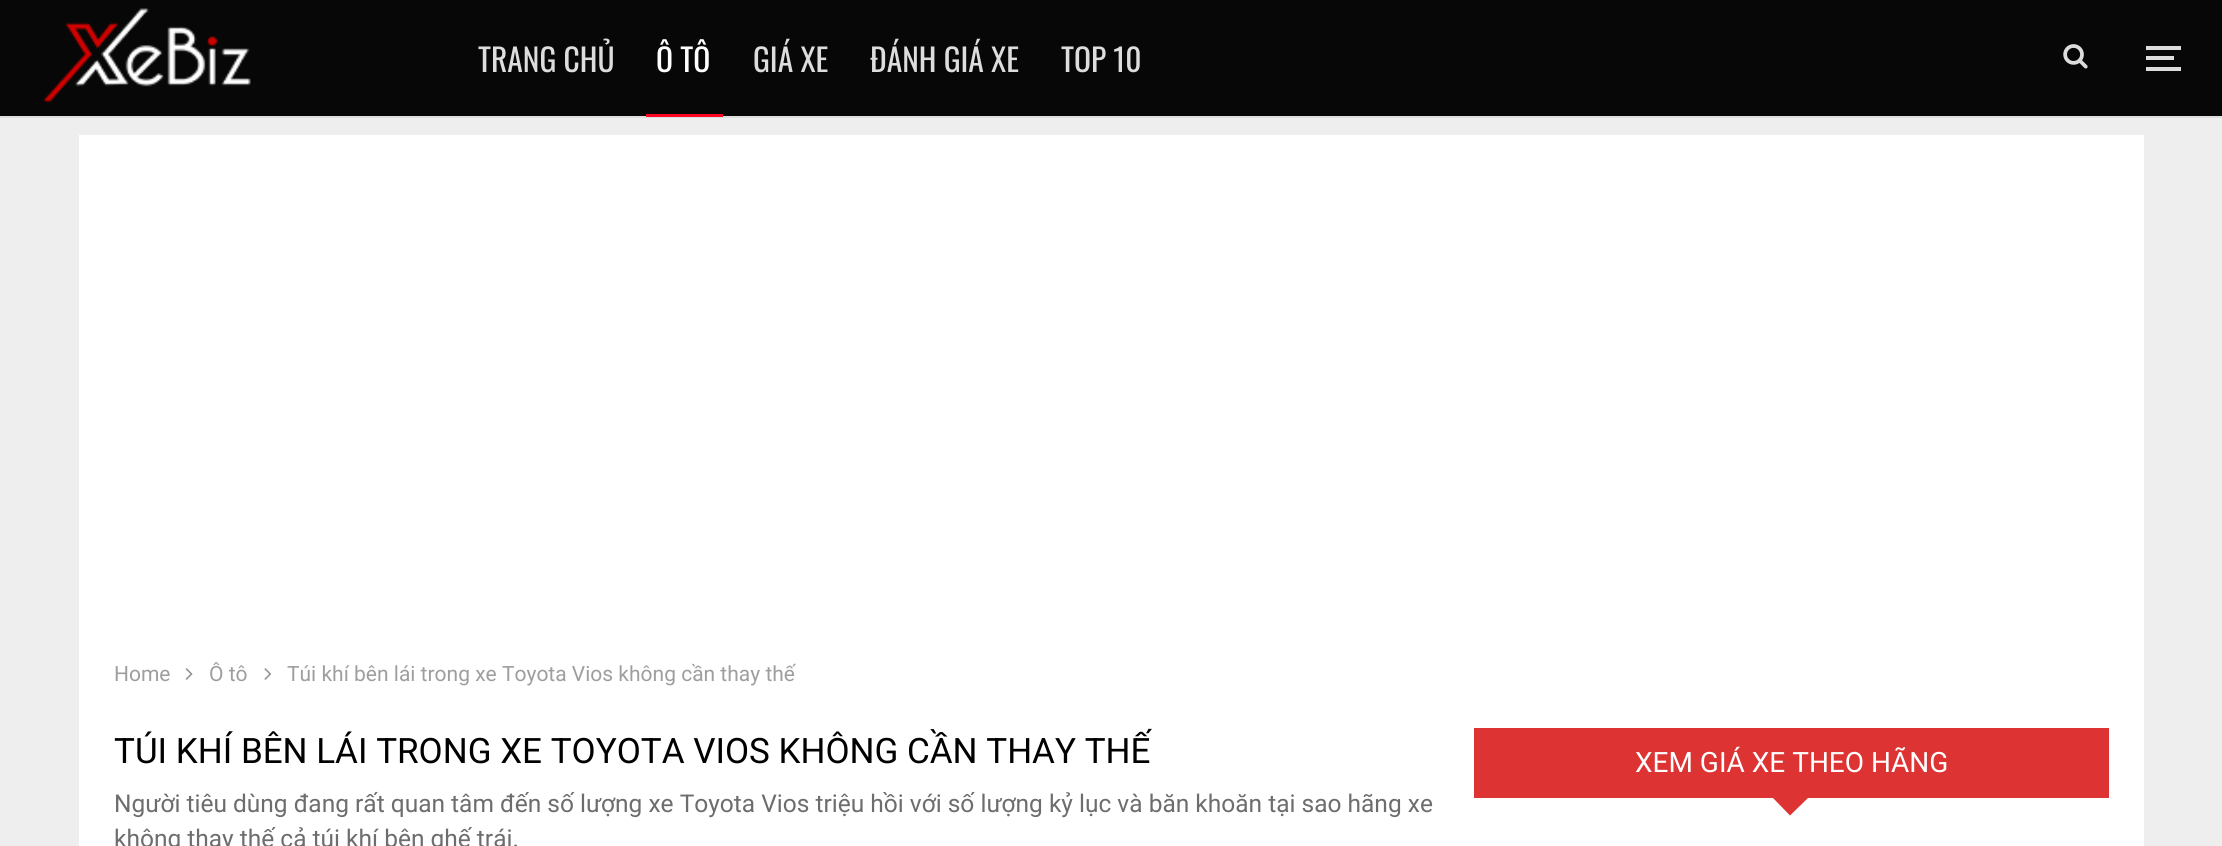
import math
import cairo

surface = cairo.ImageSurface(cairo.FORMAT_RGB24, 2222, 846)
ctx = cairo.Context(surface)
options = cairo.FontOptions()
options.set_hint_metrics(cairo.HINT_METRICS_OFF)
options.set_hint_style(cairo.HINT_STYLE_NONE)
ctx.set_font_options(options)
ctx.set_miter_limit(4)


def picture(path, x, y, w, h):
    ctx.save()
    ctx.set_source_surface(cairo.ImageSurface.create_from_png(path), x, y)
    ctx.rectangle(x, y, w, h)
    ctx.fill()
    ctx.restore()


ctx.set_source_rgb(0.933, 0.933, 0.933)
ctx.paint()
ctx.set_source_rgb(0.871, 0.871, 0.871)
ctx.rectangle(0, 116, 2222, 2)
ctx.fill()
ctx.set_source_rgb(0.031, 0.031, 0.031)
ctx.rectangle(0, 0, 2222, 116)
ctx.fill()
picture("img1.png", 43, 8, 208, 94)
ctx.select_font_face("Oswald")
ctx.set_font_size(31.5)
ctx.set_source_rgb(0.867, 0.867, 0.867)
ctx.move_to(478, 72)
ctx.show_text("TRANG CHỦ")
ctx.set_source_rgb(1, 1, 1)
ctx.move_to(656, 72)
ctx.show_text("Ô TÔ")
ctx.set_source_rgb(0.996, 0.027, 0.141)
ctx.rectangle(646, 114, 77, 3)
ctx.fill()
ctx.set_source_rgb(0.867, 0.867, 0.867)
ctx.move_to(753, 72)
ctx.show_text("GIÁ XE")
ctx.move_to(870, 72)
ctx.show_text("ĐÁNH GIÁ XE")
ctx.move_to(1061, 72)
ctx.show_text("TOP 10")
picture("img2.png", 2063, 44, 25, 25)
ctx.rectangle(2146, 56, 28, 4)
ctx.fill()
ctx.rectangle(2146, 46, 35, 4)
ctx.fill()
ctx.rectangle(2146, 67, 35, 4)
ctx.fill()
ctx.set_source_rgb(1, 1, 1)
ctx.rectangle(79, 135, 2065, 711)
ctx.fill()
ctx.select_font_face("Roboto")
ctx.set_font_size(21)
ctx.set_source_rgb(0.62, 0.62, 0.62)
ctx.move_to(114, 681)
ctx.show_text("Home")
picture("img3.png", 185, 668, 8, 12)
ctx.move_to(209, 681)
ctx.show_text("Ô tô")
picture("img4.png", 264, 668, 8, 12)
ctx.move_to(287, 681)
ctx.show_text("Túi khí bên lái trong xe Toyota Vios không cần thay thế")
ctx.set_font_size(35)
ctx.set_source_rgb(0, 0, 0)
ctx.move_to(114, 763)
ctx.show_text("TÚI KHÍ BÊN LÁI TRONG XE TOYOTA VIOS KHÔNG CẦN THAY THẾ")
ctx.set_font_size(24.5)
ctx.set_source_rgb(0.427, 0.427, 0.427)
ctx.move_to(114, 812)
ctx.show_text("Người tiêu dùng đang rất quan tâm đến số lượng xe Toyota Vios triệu hồi với số lượng kỷ lục và băn khoăn tại sao hãng xe")
ctx.move_to(114, 847)
ctx.show_text("không thay thế cả túi khí bên ghế trái.")
ctx.set_source_rgb(0.867, 0.2, 0.2)
ctx.rectangle(1474, 728, 635, 70)
ctx.fill()
ctx.set_font_size(28)
ctx.set_source_rgb(1, 1, 1)
ctx.move_to(1635, 772)
ctx.show_text("XEM GIÁ XE THEO HÃNG")
ctx.set_source_rgb(0.867, 0.2, 0.2)
ctx.new_path()
ctx.move_to(1773, 798)
ctx.line_to(1808, 798)
ctx.line_to(1790, 815.5)
ctx.close_path()
ctx.fill()
surface.write_to_png("page.png")
